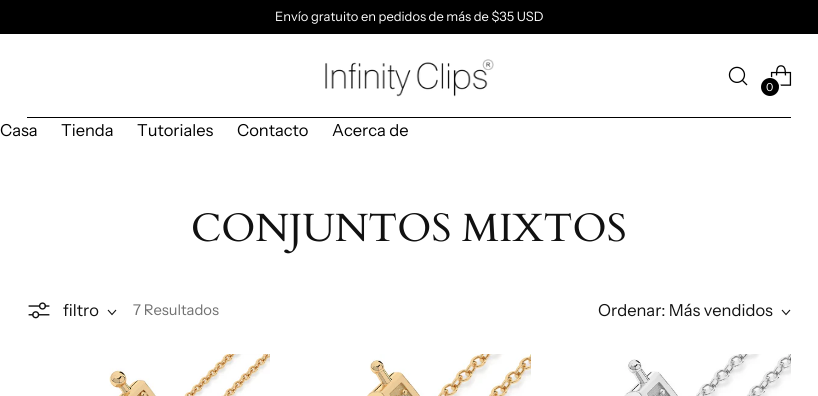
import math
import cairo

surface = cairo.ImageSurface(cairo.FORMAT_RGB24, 818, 396)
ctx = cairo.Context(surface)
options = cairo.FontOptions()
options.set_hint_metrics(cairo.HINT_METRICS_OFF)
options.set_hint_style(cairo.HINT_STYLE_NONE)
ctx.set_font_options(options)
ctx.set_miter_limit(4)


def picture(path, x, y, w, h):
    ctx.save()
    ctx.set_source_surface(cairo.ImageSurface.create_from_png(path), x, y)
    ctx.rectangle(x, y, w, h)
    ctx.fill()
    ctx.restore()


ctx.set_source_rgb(1, 1, 1)
ctx.paint()
ctx.set_source_rgb(0, 0, 0)
ctx.rectangle(0, 0, 818, 34)
ctx.fill()
ctx.select_font_face("Instrument Sans")
ctx.set_font_size(12.9)
ctx.set_source_rgb(1, 1, 1)
ctx.move_to(275, 21)
ctx.show_text("Envío gratuito en pedidos de más de $35 USD")
ctx.set_source_rgb(0, 0, 0)
ctx.rectangle(27, 117, 764, 1)
ctx.fill()
picture("img1.png", 325, 59, 169, 38)
picture("img2.png", 728, 66, 20, 20)
picture("img3.png", 770, 65, 22, 21)
ctx.arc(770.5, 87.5, 9.5, 0, 2 * math.pi)
ctx.set_source_rgb(1, 1, 1)
ctx.stroke()
ctx.set_source_rgb(0, 0, 0)
ctx.arc(770, 87, 9, 0, 2 * math.pi)
ctx.fill()
ctx.set_font_size(11)
ctx.set_source_rgb(1, 1, 1)
ctx.move_to(766, 91)
ctx.show_text("0")
ctx.set_font_size(16.5)
ctx.set_source_rgb(0, 0, 0)
ctx.move_to(0, 136)
ctx.show_text("Casa")
ctx.move_to(61, 136)
ctx.show_text("Tienda")
ctx.move_to(137, 136)
ctx.show_text("Tutoriales")
ctx.move_to(237, 136)
ctx.show_text("Contacto")
ctx.move_to(332, 136)
ctx.show_text("Acerca de")
ctx.select_font_face("Cardo")
ctx.set_font_size(39.5)
ctx.set_source_rgb(0.067, 0.067, 0.067)
ctx.move_to(191, 241)
ctx.show_text("CONJUNTOS MIXTOS")
picture("img4.png", 28, 302, 22, 17)
ctx.select_font_face("Instrument Sans")
ctx.set_font_size(16.5)
ctx.move_to(63, 316)
ctx.show_text("filtro")
ctx.new_path()
ctx.move_to(108, 310)
ctx.line_to(112, 314.5)
ctx.line_to(116, 310)
ctx.set_line_width(1.1)
ctx.stroke()
ctx.set_font_size(14.75)
ctx.set_source_rgb(0.439, 0.439, 0.439)
ctx.move_to(133, 315)
ctx.show_text("7 Resultados")
ctx.set_font_size(16.5)
ctx.set_source_rgb(0.067, 0.067, 0.067)
ctx.move_to(598, 316)
ctx.show_text("Ordenar: Más vendidos")
ctx.new_path()
ctx.move_to(782, 310)
ctx.line_to(786, 314.5)
ctx.line_to(790, 310)
ctx.stroke()
picture("img5.png", 109, 354, 161, 42)
picture("img6.png", 366, 354, 165, 42)
picture("img7.png", 624, 354, 167, 42)
surface.write_to_png("page.png")
